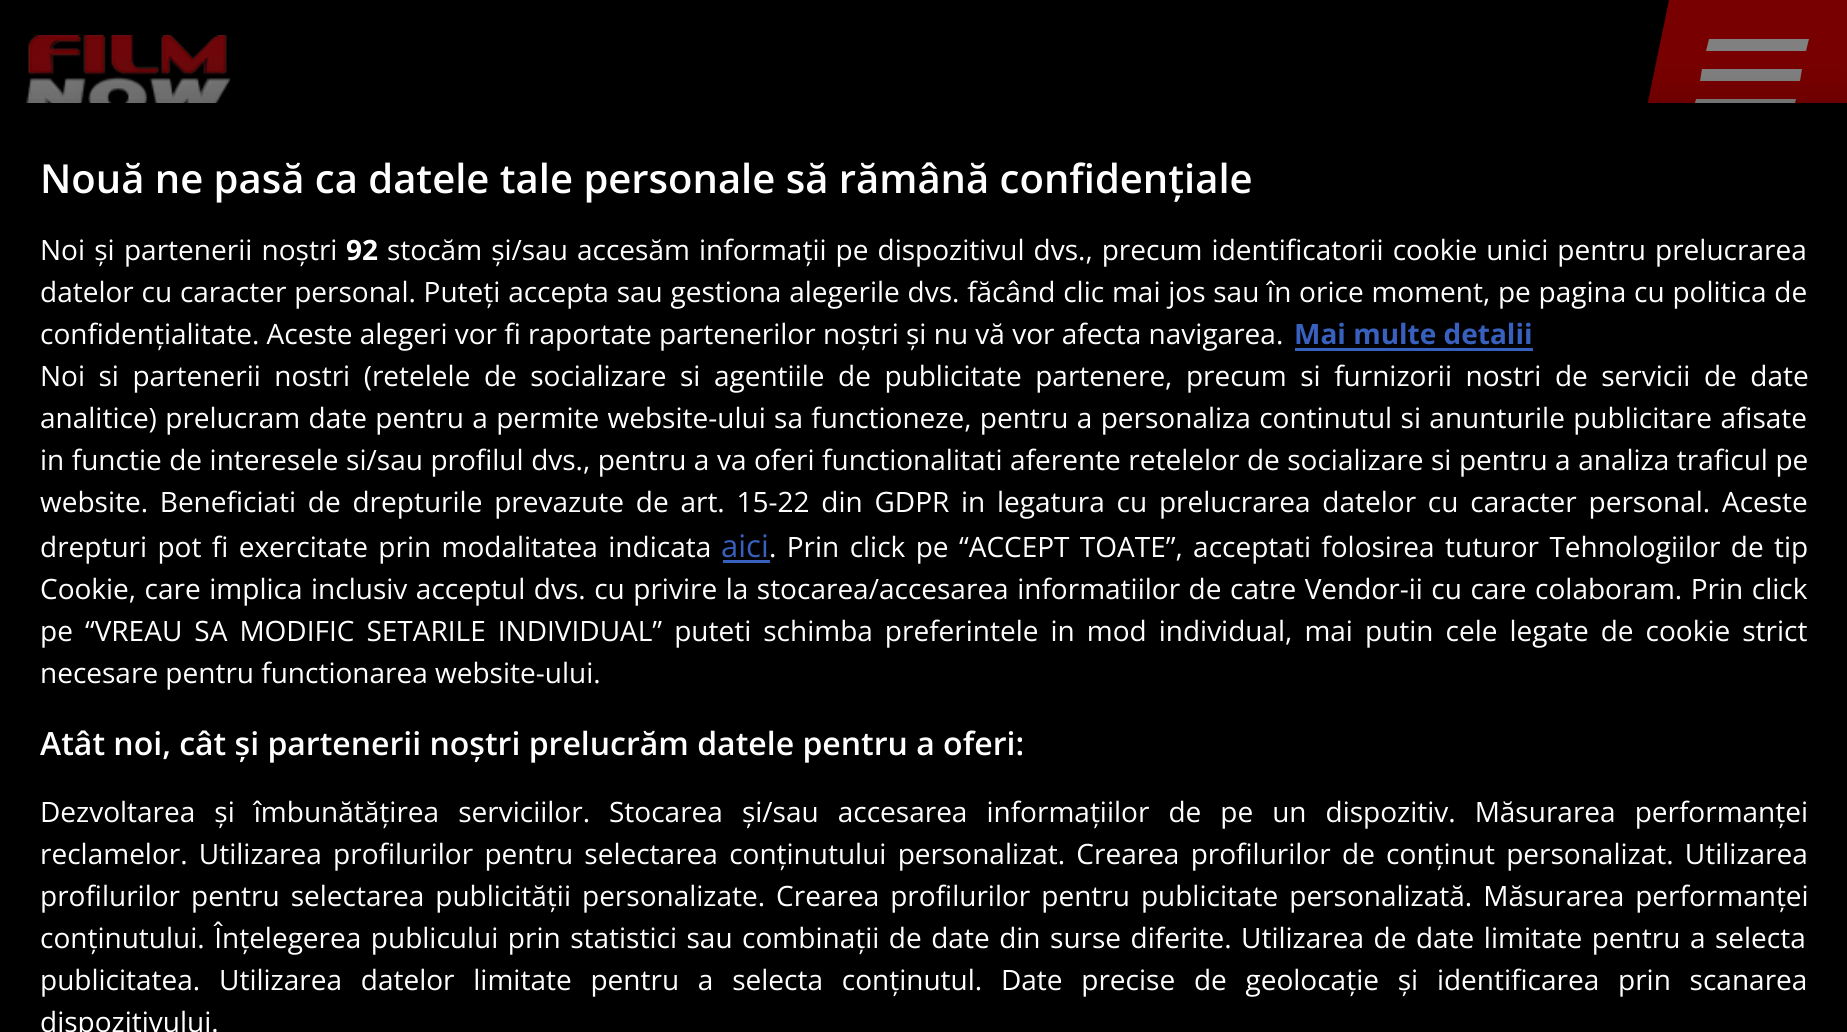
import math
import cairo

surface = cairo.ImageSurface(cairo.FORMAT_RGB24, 1847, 1032)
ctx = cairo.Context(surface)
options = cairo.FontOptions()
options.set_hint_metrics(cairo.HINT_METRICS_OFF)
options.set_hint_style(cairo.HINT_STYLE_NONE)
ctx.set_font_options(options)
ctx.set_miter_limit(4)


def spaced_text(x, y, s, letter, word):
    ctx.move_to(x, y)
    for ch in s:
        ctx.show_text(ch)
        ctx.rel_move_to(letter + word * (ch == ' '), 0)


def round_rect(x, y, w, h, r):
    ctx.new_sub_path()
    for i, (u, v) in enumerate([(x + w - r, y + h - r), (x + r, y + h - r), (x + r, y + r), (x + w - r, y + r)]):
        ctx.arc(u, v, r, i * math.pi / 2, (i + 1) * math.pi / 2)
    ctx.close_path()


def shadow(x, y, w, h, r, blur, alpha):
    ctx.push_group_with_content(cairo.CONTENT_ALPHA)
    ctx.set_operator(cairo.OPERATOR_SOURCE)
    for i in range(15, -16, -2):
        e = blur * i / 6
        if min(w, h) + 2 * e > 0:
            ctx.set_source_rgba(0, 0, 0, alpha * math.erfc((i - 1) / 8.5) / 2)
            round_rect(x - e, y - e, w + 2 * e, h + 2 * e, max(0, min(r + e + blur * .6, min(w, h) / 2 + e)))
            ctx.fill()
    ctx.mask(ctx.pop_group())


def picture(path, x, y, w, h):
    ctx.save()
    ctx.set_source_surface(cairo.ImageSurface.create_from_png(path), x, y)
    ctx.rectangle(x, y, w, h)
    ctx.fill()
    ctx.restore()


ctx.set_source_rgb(0, 0, 0)
ctx.paint()
picture("img1.png", 26, 35, 204, 68)
ctx.set_source_rgb(0.471, 0, 0)
ctx.new_path()
ctx.move_to(1669, 0)
ctx.line_to(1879, 0)
ctx.line_to(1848, 150)
ctx.line_to(1638, 150)
ctx.close_path()
ctx.fill()
ctx.set_source_rgb(0.502, 0.502, 0.502)
ctx.new_path()
ctx.move_to(1702, 69)
ctx.line_to(1802, 69)
ctx.line_to(1800, 81)
ctx.line_to(1700, 81)
ctx.close_path()
ctx.fill()
ctx.new_path()
ctx.move_to(1709, 39)
ctx.line_to(1809, 39)
ctx.line_to(1806, 51)
ctx.line_to(1706, 51)
ctx.close_path()
ctx.fill()
ctx.new_path()
ctx.move_to(1696, 99)
ctx.line_to(1796, 99)
ctx.line_to(1793, 111)
ctx.line_to(1693, 111)
ctx.close_path()
ctx.fill()
ctx.set_source_rgb(0, 0, 0)
shadow(0, 103, 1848, 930, 0, 22.5, 0.2)
ctx.set_source_rgb(0, 0, 0)
ctx.rectangle(1638, 103, 209, 47)
ctx.fill()
ctx.select_font_face("Open Sans SemiBold")
ctx.set_font_size(40)
ctx.set_source_rgb(1, 1, 1)
ctx.move_to(40, 193)
ctx.show_text("Nouă ne pasă ca datele tale personale să rămână confidențiale")
ctx.select_font_face("Open Sans")
ctx.set_font_size(28)
spaced_text(40, 260, "Noi și partenerii noștri", 0, 2)
ctx.select_font_face("Open Sans", cairo.FONT_SLANT_NORMAL, cairo.FONT_WEIGHT_BOLD)
ctx.move_to(346, 260)
ctx.show_text("92")
ctx.select_font_face("Open Sans")
spaced_text(387, 260, "stocăm și/sau accesăm informații pe dispozitivul dvs., precum identificatorii cookie unici pentru prelucrarea", 0, 1.8)
spaced_text(40, 302, "datelor cu caracter personal. Puteți accepta sau gestiona alegerile dvs. făcând clic mai jos sau în orice moment, pe pagina cu politica de", 0, 0.5)
ctx.move_to(40, 344)
ctx.show_text("confidențialitate. Aceste alegeri vor fi raportate partenerilor noștri și nu vă vor afecta navigarea.")
ctx.select_font_face("Open Sans", cairo.FONT_SLANT_NORMAL, cairo.FONT_WEIGHT_BOLD)
ctx.set_source_rgb(0.22, 0.376, 0.745)
ctx.move_to(1294, 344)
ctx.show_text("Mai multe detalii")
ctx.rectangle(1295, 348, 238, 3)
ctx.fill()
ctx.select_font_face("Open Sans")
ctx.set_source_rgb(1, 1, 1)
spaced_text(40, 386, "Noi si partenerii nostri (retelele de socializare si agentiile de publicitate partenere, precum si furnizorii nostri de servicii de date", 0, 6.25)
spaced_text(40, 428, "analitice) prelucram date pentru a permite website-ului sa functioneze, pentru a personaliza continutul si anunturile publicitare afisate", 0, 1.1)
spaced_text(40, 470, "in functie de interesele si/sau profilul dvs., pentru a va oferi functionalitati aferente retelelor de socializare si pentru a analiza traficul pe", 0, 0.25)
spaced_text(40, 512, "website. Beneficiati de drepturile prevazute de art. 15-22 din GDPR in legatura cu prelucrarea datelor cu caracter personal. Aceste", 0, 4.5)
spaced_text(40, 557, "drepturi pot fi exercitate prin modalitatea indicata", 0, 3.1)
ctx.set_font_size(31)
ctx.set_source_rgb(0.22, 0.376, 0.745)
ctx.move_to(721, 557)
ctx.show_text("aici")
ctx.rectangle(723, 560, 47, 3)
ctx.fill()
ctx.set_font_size(28)
ctx.set_source_rgb(1, 1, 1)
spaced_text(769, 557, ". Prin click pe “ACCEPT TOATE”, acceptati folosirea tuturor Tehnologiilor de tip", 0, 3.1)
spaced_text(40, 599, "Cookie, care implica inclusiv acceptul dvs. cu privire la stocarea/accesarea informatiilor de catre Vendor-ii cu care colaboram. Prin click", 0, 1.25)
spaced_text(40, 641, "pe “VREAU SA MODIFIC SETARILE INDIVIDUAL” puteti schimba preferintele in mod individual, mai putin cele legate de cookie strict", 0, 4.75)
ctx.move_to(40, 683)
ctx.show_text("necesare pentru functionarea website-ului.")
ctx.select_font_face("Open Sans SemiBold")
ctx.set_font_size(32)
ctx.move_to(40, 755)
ctx.show_text("Atât noi, cât și partenerii noștri prelucrăm datele pentru a oferi:")
ctx.select_font_face("Open Sans")
ctx.set_font_size(28)
spaced_text(40, 822, "Dezvoltarea și îmbunătățirea serviciilor. Stocarea și/sau accesarea informațiilor de pe un dispozitiv. Măsurarea performanței", 0, 11.75)
spaced_text(40, 864, "reclamelor. Utilizarea profilurilor pentru selectarea conținutului personalizat. Crearea profilurilor de conținut personalizat. Utilizarea", 0, 4)
spaced_text(40, 906, "profilurilor pentru selectarea publicității personalizate. Crearea profilurilor pentru publicitate personalizată. Măsurarea performanței", 0, 3.75)
spaced_text(40, 948, "conținutului. Înțelegerea publicului prin statistici sau combinații de date din surse diferite. Utilizarea de date limitate pentru a selecta", 0, 2.25)
spaced_text(40, 990, "publicitatea. Utilizarea datelor limitate pentru a selecta conținutul. Date precise de geolocație și identificarea prin scanarea", 0, 11.5)
ctx.move_to(40, 1032)
ctx.show_text("dispozitivului.")
surface.write_to_png("page.png")
